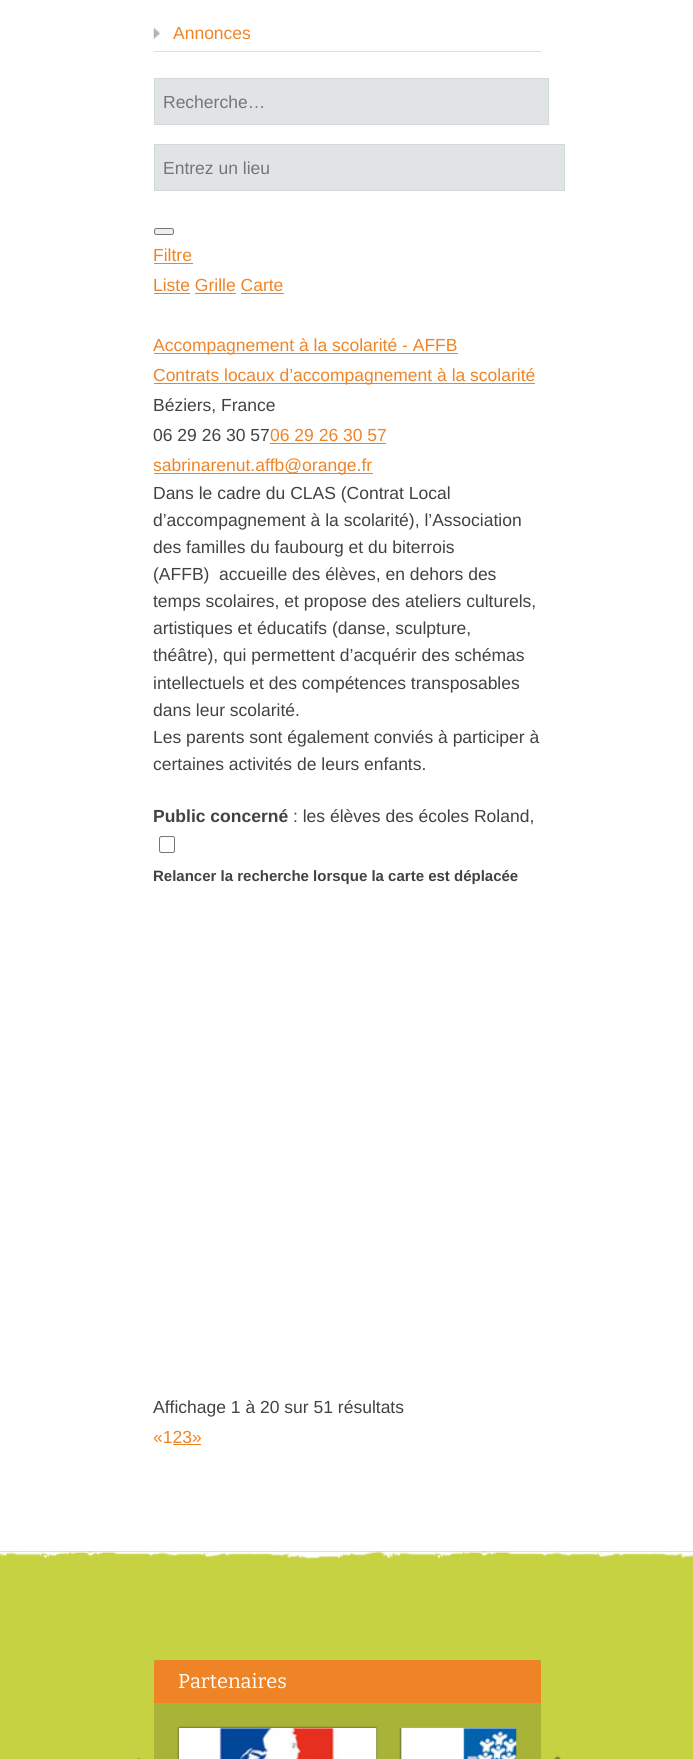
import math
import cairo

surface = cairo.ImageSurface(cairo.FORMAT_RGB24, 693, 1759)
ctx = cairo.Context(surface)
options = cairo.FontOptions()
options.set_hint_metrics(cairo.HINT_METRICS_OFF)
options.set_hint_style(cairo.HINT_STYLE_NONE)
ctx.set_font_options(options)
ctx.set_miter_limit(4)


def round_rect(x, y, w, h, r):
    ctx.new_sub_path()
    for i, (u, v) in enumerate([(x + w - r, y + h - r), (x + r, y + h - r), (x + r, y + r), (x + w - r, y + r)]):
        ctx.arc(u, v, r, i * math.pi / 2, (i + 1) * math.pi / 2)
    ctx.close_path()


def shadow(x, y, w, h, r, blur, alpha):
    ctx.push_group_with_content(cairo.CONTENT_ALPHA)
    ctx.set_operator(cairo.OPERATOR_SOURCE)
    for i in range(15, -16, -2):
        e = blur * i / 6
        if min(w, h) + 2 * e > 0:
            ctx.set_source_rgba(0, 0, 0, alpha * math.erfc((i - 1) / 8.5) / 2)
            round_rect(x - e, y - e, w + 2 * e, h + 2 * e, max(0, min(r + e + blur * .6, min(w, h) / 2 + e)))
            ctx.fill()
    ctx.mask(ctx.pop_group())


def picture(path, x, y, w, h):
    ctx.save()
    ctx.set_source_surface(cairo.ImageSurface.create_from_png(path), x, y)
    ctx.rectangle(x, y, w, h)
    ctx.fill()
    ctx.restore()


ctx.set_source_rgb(1, 1, 1)
ctx.paint()
ctx.set_source_rgb(0.871, 0.878, 0.878)
ctx.rectangle(154, 51, 387, 1)
ctx.fill()
picture("img1.png", 153, 27, 7, 12)
ctx.select_font_face("Liberation Sans")
ctx.set_font_size(17.5)
ctx.set_source_rgb(0.937, 0.518, 0.153)
ctx.move_to(173, 39)
ctx.show_text("Annonces")
ctx.set_source_rgb(0.882, 0.894, 0.898)
ctx.rectangle(154.5, 78.5, 394, 46)
ctx.fill_preserve()
ctx.set_source_rgb(0.831, 0.847, 0.851)
ctx.set_line_width(1)
ctx.stroke()
ctx.set_source_rgb(0.459, 0.459, 0.459)
ctx.move_to(163, 108)
ctx.show_text("Recherche…")
ctx.set_source_rgb(0.882, 0.894, 0.898)
ctx.rectangle(154.5, 144.5, 410, 46)
ctx.fill_preserve()
ctx.set_source_rgb(0.831, 0.847, 0.851)
ctx.stroke()
ctx.set_source_rgb(0.459, 0.459, 0.459)
ctx.move_to(163, 174)
ctx.show_text("Entrez un lieu")
ctx.set_source_rgb(0.937, 0.937, 0.937)
round_rect(154.5, 228.5, 19, 6, 2)
ctx.fill_preserve()
ctx.set_source_rgb(0.463, 0.463, 0.463)
ctx.stroke()
ctx.set_source_rgb(0.937, 0.518, 0.153)
ctx.move_to(153, 261)
ctx.show_text("Filtre")
ctx.rectangle(154, 263, 39, 1)
ctx.fill()
ctx.move_to(153, 291)
ctx.show_text("Liste Grille Carte")
ctx.rectangle(154, 293, 36, 1)
ctx.fill()
ctx.rectangle(195, 293, 41, 1)
ctx.fill()
ctx.rectangle(241, 293, 43, 1)
ctx.fill()
ctx.rectangle(154, 353, 304, 1)
ctx.fill()
ctx.move_to(153, 351)
ctx.show_text("Accompagnement à la scolarité - AFFB")
ctx.rectangle(154, 383, 381, 1)
ctx.fill()
ctx.move_to(153, 381)
ctx.show_text("Contrats locaux d’accompagnement à la scolarité")
ctx.set_source_rgb(0.259, 0.259, 0.259)
ctx.move_to(153, 411)
ctx.show_text("Béziers, France")
ctx.move_to(153, 441)
ctx.show_text("06 29 26 30 57")
ctx.set_source_rgb(0.937, 0.518, 0.153)
ctx.move_to(270, 441)
ctx.show_text("06 29 26 30 57")
ctx.rectangle(270, 443, 116, 1)
ctx.fill()
ctx.rectangle(154, 473, 219, 1)
ctx.fill()
ctx.move_to(153, 471)
ctx.show_text("sabrinarenut.affb@orange.fr")
ctx.set_source_rgb(0.259, 0.259, 0.259)
ctx.move_to(153, 499)
ctx.show_text("Dans le cadre du CLAS (Contrat Local")
ctx.move_to(153, 526)
ctx.show_text("d’accompagnement à la scolarité), l’Association")
ctx.move_to(153, 553)
ctx.show_text("des familles du faubourg et du biterrois")
ctx.move_to(153, 580)
ctx.show_text("(AFFB)  accueille des élèves, en dehors des")
ctx.move_to(153, 607)
ctx.show_text("temps scolaires, et propose des ateliers culturels,")
ctx.move_to(153, 634)
ctx.show_text("artistiques et éducatifs (danse, sculpture,")
ctx.move_to(153, 661)
ctx.show_text("théâtre), qui permettent d’acquérir des schémas")
ctx.move_to(153, 689)
ctx.show_text("intellectuels et des compétences transposables")
ctx.move_to(153, 716)
ctx.show_text("dans leur scolarité.")
ctx.move_to(153, 743)
ctx.show_text("Les parents sont également conviés à participer à")
ctx.move_to(153, 770)
ctx.show_text("certaines activités de leurs enfants.")
ctx.select_font_face("Liberation Sans", cairo.FONT_SLANT_NORMAL, cairo.FONT_WEIGHT_BOLD)
ctx.move_to(153, 822)
ctx.show_text("Public concerné")
ctx.select_font_face("Liberation Sans")
ctx.move_to(293, 822)
ctx.show_text(": les élèves des écoles Roland,")
round_rect(159.5, 836.5, 15, 16, 2)
ctx.set_source_rgb(0.463, 0.463, 0.463)
ctx.stroke()
ctx.select_font_face("Liberation Sans", cairo.FONT_SLANT_NORMAL, cairo.FONT_WEIGHT_BOLD)
ctx.set_font_size(15)
ctx.set_source_rgb(0.259, 0.259, 0.259)
ctx.move_to(153, 881)
ctx.show_text("Relancer la recherche lorsque la carte est déplacée")
ctx.select_font_face("Liberation Sans")
ctx.set_font_size(17.5)
ctx.move_to(153, 1413)
ctx.show_text("Affichage 1 à 20 sur 51 résultats")
ctx.set_source_rgb(0.937, 0.518, 0.153)
ctx.move_to(153, 1443)
ctx.show_text("«123»")
ctx.rectangle(173, 1444, 28, 1)
ctx.fill()
ctx.set_source_rgb(0.78, 0.824, 0.259)
ctx.rectangle(0, 1551, 693, 208)
ctx.fill()
picture("img2.png", 0, 1551, 693, 8)
ctx.set_source_rgb(0.663, 0.702, 0.22)
ctx.rectangle(154, 1660, 387, 99)
ctx.fill()
ctx.set_source_rgb(0.937, 0.518, 0.153)
ctx.new_path()
ctx.move_to(158, 1660)
ctx.line_to(537, 1660)
ctx.curve_to(539, 1660, 541, 1662, 541, 1664)
ctx.line_to(541, 1703)
ctx.line_to(154, 1703)
ctx.line_to(154, 1664)
ctx.curve_to(154, 1662, 156, 1660, 158, 1660)
ctx.close_path()
ctx.fill()
ctx.select_font_face("Bitter")
ctx.set_font_size(20)
ctx.set_source_rgb(1, 1, 1)
ctx.move_to(178, 1688)
ctx.show_text("Partenaires")
ctx.set_source_rgb(0.133, 0.133, 0.133)
shadow(179, 1728, 197, 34, 0, 1, 1)
picture("img3.png", 178, 1727, 199, 32)
ctx.save()
ctx.rectangle(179, 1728, 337, 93)
ctx.clip()
shadow(401, 1728, 198, 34, 0, 1, 1)
ctx.restore()
picture("img4.png", 401, 1727, 116, 32)
picture("img5.png", 137, 1757, 4, 2)
picture("img6.png", 554, 1756, 7, 3)
surface.write_to_png("page.png")
